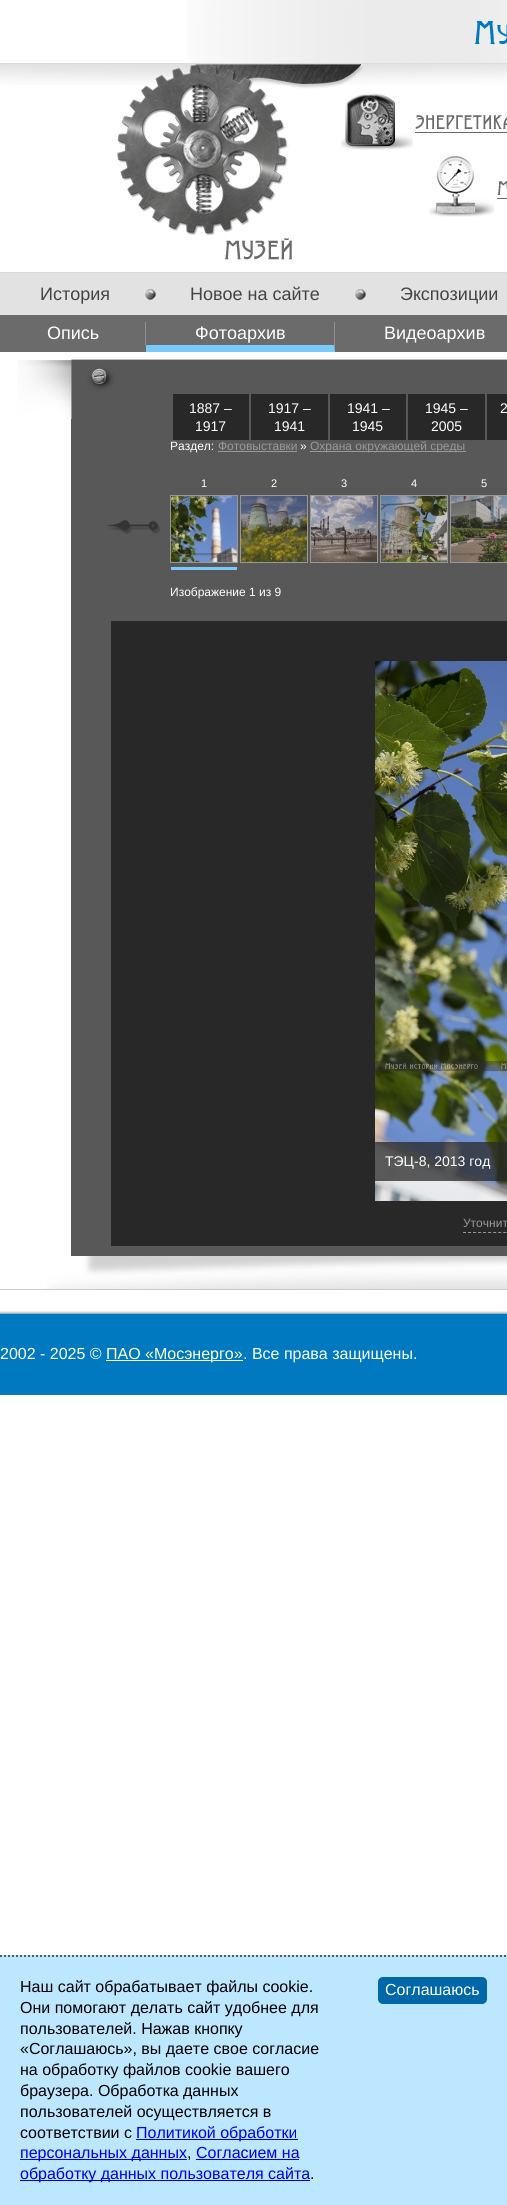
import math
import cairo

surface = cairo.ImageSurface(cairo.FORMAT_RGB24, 507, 2205)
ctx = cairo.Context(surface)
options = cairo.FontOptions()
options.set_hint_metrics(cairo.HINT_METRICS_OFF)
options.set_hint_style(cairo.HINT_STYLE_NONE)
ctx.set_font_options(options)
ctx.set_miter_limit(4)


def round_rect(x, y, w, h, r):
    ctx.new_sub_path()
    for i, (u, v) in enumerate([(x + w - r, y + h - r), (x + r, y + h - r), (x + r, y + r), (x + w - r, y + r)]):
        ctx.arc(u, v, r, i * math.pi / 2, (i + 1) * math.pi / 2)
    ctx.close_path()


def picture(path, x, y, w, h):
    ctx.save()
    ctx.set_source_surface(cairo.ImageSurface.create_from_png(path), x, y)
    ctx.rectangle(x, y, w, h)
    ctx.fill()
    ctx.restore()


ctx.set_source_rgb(1, 1, 1)
ctx.paint()
picture("img1.png", 187, 0, 320, 63)
picture("img2.png", 474, 21, 33, 23)
picture("img3.png", 0, 64, 507, 21)
ctx.set_source_rgb(0.863, 0.855, 0.855)
ctx.rectangle(0, 63, 507, 1)
ctx.fill()
ctx.rectangle(0, 272, 507, 1)
ctx.fill()
picture("img4.png", 117, 64, 246, 171)
picture("img5.png", 341, 93, 72, 57)
picture("img6.png", 415, 115, 92, 18)
picture("img7.png", 429, 156, 65, 61)
picture("img8.png", 497, 181, 10, 18)
picture("img9.png", 224, 238, 68, 22)
ctx.set_source_rgb(0.886, 0.886, 0.886)
ctx.rectangle(0, 273, 507, 42)
ctx.fill()
ctx.select_font_face("Liberation Sans")
ctx.set_font_size(18)
ctx.set_source_rgb(0.271, 0.267, 0.267)
ctx.move_to(40, 300)
ctx.show_text("История")
picture("img10.png", 145, 289, 11, 11)
ctx.move_to(190, 300)
ctx.show_text("Новое на сайте")
picture("img10.png", 355, 289, 11, 11)
ctx.move_to(400, 300)
ctx.show_text("Экспозиции")
ctx.set_source_rgb(0.42, 0.42, 0.42)
ctx.rectangle(0, 315, 507, 37)
ctx.fill()
ctx.set_source_rgb(0.573, 0.565, 0.565)
ctx.rectangle(145, 322, 1, 23)
ctx.fill()
ctx.set_source_rgb(1, 1, 1)
ctx.move_to(47, 339)
ctx.show_text("Опись")
ctx.set_source_rgb(0.573, 0.565, 0.565)
ctx.new_path()
ctx.move_to(335, 322)
ctx.line_to(335, 352)
ctx.line_to(334, 345)
ctx.line_to(334, 322)
ctx.close_path()
ctx.fill()
ctx.set_source_rgb(0.478, 0.796, 0.988)
ctx.new_path()
ctx.move_to(335, 352)
ctx.line_to(146, 352)
ctx.line_to(146, 345)
ctx.line_to(334, 345)
ctx.close_path()
ctx.fill()
ctx.set_source_rgb(1, 1, 1)
ctx.move_to(195, 339)
ctx.show_text("Фотоархив")
ctx.move_to(384, 339)
ctx.show_text("Видеоархив")
ctx.set_source_rgb(0.796, 0.792, 0.792)
ctx.rectangle(0, 1289, 507, 1)
ctx.fill()
picture("img11.png", 17, 359, 490, 60)
ctx.set_source_rgb(0.349, 0.345, 0.345)
ctx.rectangle(71, 419, 436, 837)
ctx.fill()
ctx.set_source_rgb(0.157, 0.157, 0.157)
ctx.rectangle(173, 394, 76, 46)
ctx.fill()
ctx.set_font_size(14)
ctx.set_source_rgb(1, 1, 1)
ctx.move_to(189, 413)
ctx.show_text("1887 –")
ctx.move_to(195, 431)
ctx.show_text("1917")
ctx.set_source_rgb(0.157, 0.157, 0.157)
ctx.rectangle(251, 394, 77, 46)
ctx.fill()
ctx.set_source_rgb(1, 1, 1)
ctx.move_to(268, 413)
ctx.show_text("1917 –")
ctx.move_to(274, 431)
ctx.show_text("1941")
ctx.set_source_rgb(0.157, 0.157, 0.157)
ctx.rectangle(330, 394, 76, 46)
ctx.fill()
ctx.set_source_rgb(1, 1, 1)
ctx.move_to(347, 413)
ctx.show_text("1941 –")
ctx.move_to(352, 431)
ctx.show_text("1945")
ctx.set_source_rgb(0.157, 0.157, 0.157)
ctx.rectangle(408, 394, 77, 46)
ctx.fill()
ctx.set_source_rgb(1, 1, 1)
ctx.move_to(425, 413)
ctx.show_text("1945 –")
ctx.move_to(431, 431)
ctx.show_text("2005")
ctx.set_source_rgb(0.157, 0.157, 0.157)
ctx.rectangle(487, 394, 20, 46)
ctx.fill()
ctx.set_source_rgb(1, 1, 1)
ctx.move_to(500, 413)
ctx.show_text("2")
ctx.set_font_size(12)
ctx.move_to(170, 450)
ctx.show_text("Раздел:")
ctx.set_source_rgb(0.6, 0.6, 0.6)
ctx.move_to(218, 450)
ctx.show_text("Фотовыставки")
ctx.rectangle(218, 451, 79, 1)
ctx.fill()
ctx.set_source_rgb(1, 1, 1)
ctx.move_to(300, 450)
ctx.show_text("»")
ctx.set_source_rgb(0.6, 0.6, 0.6)
ctx.rectangle(310, 451, 156, 1)
ctx.fill()
ctx.move_to(310, 450)
ctx.show_text("Охрана окружающей среды")
ctx.rectangle(170.5, 495.5, 67, 67)
ctx.set_source_rgb(0.596, 0.596, 0.596)
ctx.set_line_width(1)
ctx.stroke()
ctx.set_font_size(11)
ctx.set_source_rgb(1, 1, 1)
ctx.move_to(201, 487)
ctx.show_text("1")
picture("img12.png", 171, 496, 66, 66)
ctx.set_source_rgb(0.478, 0.796, 0.988)
ctx.rectangle(171, 567, 66, 3)
ctx.fill()
ctx.rectangle(240.5, 495.5, 67, 67)
ctx.set_source_rgb(0.596, 0.596, 0.596)
ctx.stroke()
ctx.set_source_rgb(1, 1, 1)
ctx.move_to(271, 487)
ctx.show_text("2")
picture("img13.png", 241, 496, 66, 66)
ctx.rectangle(310.5, 495.5, 67, 67)
ctx.set_source_rgb(0.596, 0.596, 0.596)
ctx.stroke()
ctx.set_source_rgb(1, 1, 1)
ctx.move_to(341, 487)
ctx.show_text("3")
picture("img14.png", 311, 496, 66, 66)
ctx.rectangle(380.5, 495.5, 67, 67)
ctx.set_source_rgb(0.596, 0.596, 0.596)
ctx.stroke()
ctx.set_source_rgb(1, 1, 1)
ctx.move_to(411, 487)
ctx.show_text("4")
picture("img15.png", 381, 496, 66, 66)
ctx.rectangle(450.5, 495.5, 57, 67)
ctx.set_source_rgb(0.596, 0.596, 0.596)
ctx.stroke()
ctx.set_source_rgb(1, 1, 1)
ctx.move_to(481, 487)
ctx.show_text("5")
picture("img16.png", 451, 496, 56, 66)
picture("img17.png", 106, 520, 54, 14)
ctx.set_font_size(12)
ctx.move_to(170, 596)
ctx.show_text("Изображение 1 из 9")
ctx.set_source_rgb(0.157, 0.157, 0.157)
ctx.rectangle(111, 621, 396, 625)
ctx.fill()
picture("img18.png", 375, 661, 132, 540)
ctx.set_source_rgba(0.157, 0.157, 0.157, 0.75)
ctx.rectangle(375, 1142, 132, 39)
ctx.fill()
ctx.set_font_size(14)
ctx.set_source_rgb(1, 1, 1)
ctx.move_to(385, 1166)
ctx.show_text("ТЭЦ-8, 2013 год")
ctx.set_font_size(12)
ctx.set_source_rgb(0.6, 0.6, 0.6)
ctx.move_to(463, 1227)
ctx.show_text("Уточнит")
ctx.new_path()
ctx.move_to(463, 1232.5)
ctx.line_to(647, 1232.5)
ctx.set_dash([3, 2.03])
ctx.stroke()
picture("img19.png", 46, 1256, 461, 33)
picture("img20.png", 0, 1311, 507, 3)
ctx.set_source_rgb(0, 0.475, 0.757)
ctx.rectangle(0, 1314, 507, 81)
ctx.fill()
ctx.set_font_size(16)
ctx.set_source_rgb(1, 1, 1)
ctx.move_to(0, 1359)
ctx.show_text("2002 - 2025 ©")
ctx.set_source_rgb(1, 1, 0.8)
ctx.rectangle(106, 1360, 137, 1)
ctx.fill()
ctx.move_to(106, 1359)
ctx.show_text("ПАО «Мосэнерго»")
ctx.set_source_rgb(1, 1, 1)
ctx.move_to(243, 1359)
ctx.show_text(". Все права защищены.")
ctx.set_source_rgb(0.741, 0.902, 1)
ctx.rectangle(0, 1955, 507, 250)
ctx.fill()
ctx.new_path()
ctx.move_to(0, 1956)
ctx.line_to(507, 1956)
ctx.set_source_rgb(0.298, 0.361, 0.4)
ctx.set_line_width(2)
ctx.set_dash([2, 2])
ctx.stroke()
ctx.set_source_rgb(0, 0, 0)
ctx.move_to(20, 1992)
ctx.show_text("Наш сайт обрабатывает файлы cookie.")
ctx.move_to(20, 2013)
ctx.show_text("Они помогают делать сайт удобнее для")
ctx.move_to(20, 2034)
ctx.show_text("пользователей. Нажав кнопку")
ctx.move_to(20, 2054)
ctx.show_text("«Соглашаюсь», вы даете свое согласие")
ctx.move_to(20, 2075)
ctx.show_text("на обработку файлов cookie вашего")
ctx.move_to(20, 2096)
ctx.show_text("браузера. Обработка данных")
ctx.move_to(20, 2117)
ctx.show_text("пользователей осуществляется в")
ctx.move_to(20, 2138)
ctx.show_text("соответствии с")
ctx.set_source_rgb(0, 0, 0.933)
ctx.rectangle(136, 2139, 162, 1)
ctx.fill()
ctx.move_to(136, 2138)
ctx.show_text("Политикой обработки")
ctx.rectangle(20, 2159, 167, 1)
ctx.fill()
ctx.move_to(20, 2158)
ctx.show_text("персональных данных")
ctx.set_source_rgb(0, 0, 0)
ctx.move_to(187, 2158)
ctx.show_text(",")
ctx.set_source_rgb(0, 0, 0.933)
ctx.move_to(196, 2158)
ctx.show_text("Согласием на")
ctx.rectangle(196, 2159, 103, 1)
ctx.fill()
ctx.rectangle(20, 2180, 290, 1)
ctx.fill()
ctx.move_to(20, 2179)
ctx.show_text("обработку данных пользователя сайта")
ctx.set_source_rgb(0, 0, 0)
ctx.move_to(310, 2179)
ctx.show_text(".")
ctx.set_source_rgb(0, 0.408, 0.663)
round_rect(378, 1977, 109, 27, 5)
ctx.fill()
ctx.set_source_rgb(1, 1, 1)
ctx.move_to(385, 1995)
ctx.show_text("Соглашаюсь")
surface.write_to_png("page.png")
